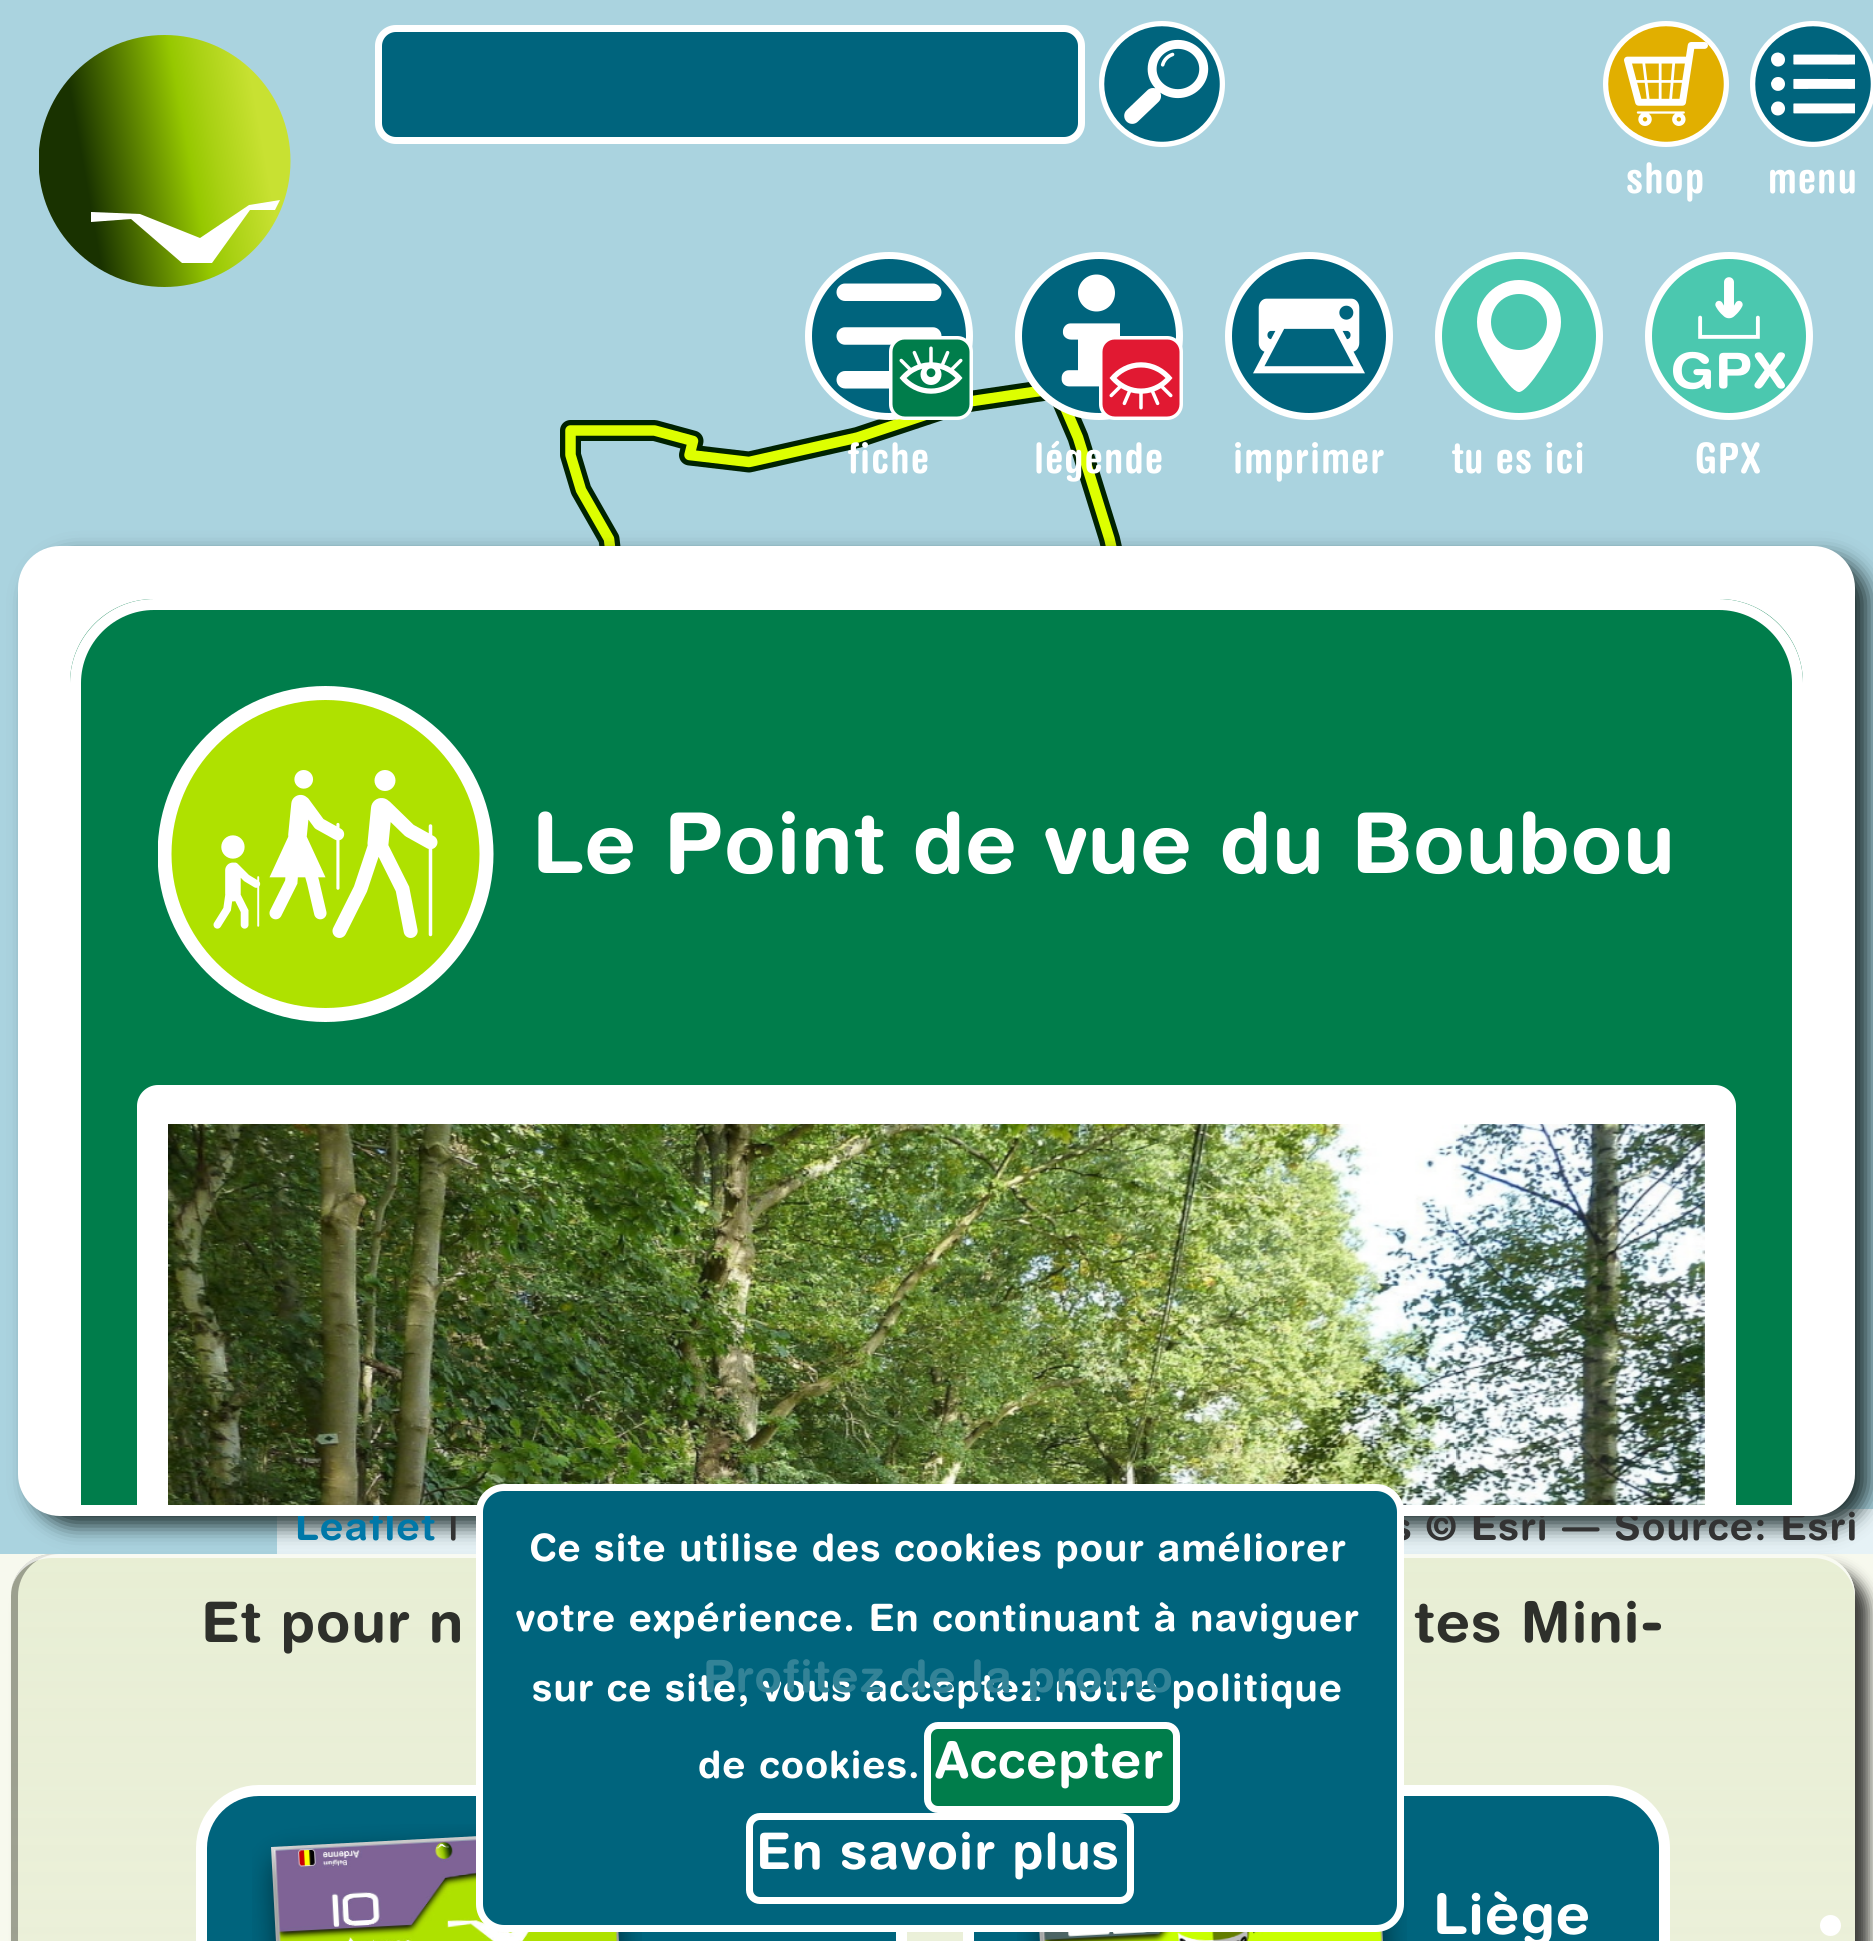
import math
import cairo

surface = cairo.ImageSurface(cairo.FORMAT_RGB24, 1873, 1941)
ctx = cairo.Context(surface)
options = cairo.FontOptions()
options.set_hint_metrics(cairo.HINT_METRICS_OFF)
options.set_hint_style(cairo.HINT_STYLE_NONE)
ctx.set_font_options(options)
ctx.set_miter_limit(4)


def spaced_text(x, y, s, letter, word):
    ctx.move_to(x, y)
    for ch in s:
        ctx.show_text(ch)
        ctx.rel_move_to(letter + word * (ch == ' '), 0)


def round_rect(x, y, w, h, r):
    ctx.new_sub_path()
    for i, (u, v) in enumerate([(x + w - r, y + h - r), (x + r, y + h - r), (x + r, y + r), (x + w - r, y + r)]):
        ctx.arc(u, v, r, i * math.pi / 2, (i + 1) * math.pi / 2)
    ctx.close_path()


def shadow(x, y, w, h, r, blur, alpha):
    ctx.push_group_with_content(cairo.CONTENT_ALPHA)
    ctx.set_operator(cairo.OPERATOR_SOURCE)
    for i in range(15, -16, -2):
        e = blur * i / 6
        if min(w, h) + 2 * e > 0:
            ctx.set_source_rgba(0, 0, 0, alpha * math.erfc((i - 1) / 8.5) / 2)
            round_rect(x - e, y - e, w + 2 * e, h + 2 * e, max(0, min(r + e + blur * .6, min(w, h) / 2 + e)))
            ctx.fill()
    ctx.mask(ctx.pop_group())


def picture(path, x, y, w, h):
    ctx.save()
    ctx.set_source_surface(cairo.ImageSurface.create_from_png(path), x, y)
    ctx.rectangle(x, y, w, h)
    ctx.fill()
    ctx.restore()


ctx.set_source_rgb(0.965, 0.973, 0.933)
ctx.paint()
ctx.set_source_rgb(0.667, 0.827, 0.875)
ctx.rectangle(0, 0, 1873, 1554)
ctx.fill()
ctx.save()
ctx.rectangle(39, 35, 252, 252)
ctx.clip()
gradient = cairo.LinearGradient(294, 138, 85, 175)
gradient.add_color_stop_rgba(0.15, 0.784, 0.882, 0.196, 1)
gradient.add_color_stop_rgba(0.38, 0.663, 0.82, 0.075, 1)
gradient.add_color_stop_rgba(0.5, 0.588, 0.784, 0, 1)
gradient.add_color_stop_rgba(1, 0.098, 0.196, 0, 1)
ctx.set_source(gradient)
ctx.arc(164.5, 161, 126, 0, 2 * math.pi)
ctx.fill()
ctx.restore()
ctx.set_source_rgb(1, 1, 1)
ctx.new_path()
ctx.move_to(249, 205)
ctx.line_to(200, 238)
ctx.line_to(140, 214)
ctx.line_to(91, 212)
ctx.line_to(91, 222)
ctx.line_to(131, 219)
ctx.line_to(182, 263)
ctx.line_to(212, 263)
ctx.line_to(250, 210)
ctx.line_to(275, 210)
ctx.line_to(280, 200)
ctx.close_path()
ctx.fill()
ctx.set_source_rgb(0, 0.392, 0.49)
round_rect(378.5, 28.5, 703, 112, 17.5)
ctx.fill_preserve()
ctx.set_source_rgb(1, 1, 1)
ctx.set_line_width(7)
ctx.stroke()
picture("img1.png", 1099, 21, 126, 126)
picture("img2.png", 1603, 21, 126, 126)
ctx.select_font_face("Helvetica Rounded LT", cairo.FONT_SLANT_NORMAL, cairo.FONT_WEIGHT_BOLD)
ctx.set_font_size(42)
spaced_text(1626, 193, "shop", 1.15, 0)
picture("img3.png", 1750, 21, 123, 126)
spaced_text(1768, 193, "menu", 1.15, 0)
picture("img11.png", 560, 382, 562, 164)
ctx.set_source_rgb(0.902, 0.949, 0.961)
ctx.rectangle(277, 1509, 1596, 45)
ctx.fill()
ctx.save()
ctx.set_fill_rule(cairo.FILL_RULE_EVEN_ODD)
ctx.new_path()
ctx.move_to(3, 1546)
ctx.line_to(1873, 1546)
ctx.line_to(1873, 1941)
ctx.line_to(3, 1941)
ctx.close_path()
ctx.move_to(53, 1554)
ctx.line_to(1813, 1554)
ctx.curve_to(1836, 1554, 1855, 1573, 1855, 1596)
ctx.line_to(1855, 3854)
ctx.line_to(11, 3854)
ctx.line_to(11, 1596)
ctx.curve_to(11, 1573, 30, 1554, 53, 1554)
ctx.close_path()
ctx.clip()
ctx.set_source_rgb(0, 0, 0)
shadow(25, 1568, 1844, 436, 42, 7, 0.75)
ctx.restore()
gradient = cairo.LinearGradient(933, 1554, 933, 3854)
gradient.add_color_stop_rgba(0, 0.882, 0.914, 0.784, 0.67)
gradient.add_color_stop_rgba(1, 1, 1, 1, 1)
ctx.set_source(gradient)
ctx.new_path()
ctx.move_to(53, 1554)
ctx.line_to(1813, 1554)
ctx.curve_to(1836, 1554, 1855, 1573, 1855, 1596)
ctx.line_to(1855, 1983)
ctx.line_to(11, 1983)
ctx.line_to(11, 1596)
ctx.curve_to(11, 1573, 30, 1554, 53, 1554)
ctx.close_path()
ctx.fill()
ctx.set_source_rgba(0, 0, 0, 0.33)
ctx.new_path()
ctx.move_to(53, 1554)
ctx.curve_to(30, 1554, 11, 1573, 11, 1596)
ctx.line_to(11, 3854)
ctx.line_to(18, 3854)
ctx.line_to(18, 1596)
ctx.curve_to(18, 1573, 36, 1554, 60, 1554)
ctx.close_path()
ctx.fill()
ctx.set_source_rgba(1, 1, 1, 0.7)
ctx.new_path()
ctx.move_to(52, 1558)
ctx.line_to(1813, 1558)
ctx.curve_to(1836, 1558, 1855, 1576, 1855, 1600)
ctx.line_to(1855, 1596)
ctx.curve_to(1855, 1573, 1836, 1554, 1813, 1554)
ctx.line_to(53, 1554)
ctx.curve_to(33, 1554, 16, 1568, 12, 1587)
ctx.curve_to(17, 1570, 33, 1558, 52, 1558)
ctx.close_path()
ctx.fill()
ctx.set_source_rgb(0.133, 0.2, 0.2)
shadow(32, 557, 1837, 969, 42, 10.5, 1)
ctx.select_font_face("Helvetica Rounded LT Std", cairo.FONT_SLANT_NORMAL, cairo.FONT_WEIGHT_BOLD)
ctx.set_font_size(38.5)
ctx.set_source_rgb(0, 0.471, 0.659)
spaced_text(295, 1540, "Leaflet", 1.15, 0)
ctx.set_source_rgb(0.2, 0.2, 0.2)
spaced_text(449, 1540, "|", 1.15, 0)
spaced_text(1391, 1540, "s © Esri — Source: Esri", 1.15, 0)
ctx.set_source_rgb(1, 1, 1)
round_rect(23.5, 551.5, 1826, 959, 36.5)
ctx.fill_preserve()
ctx.set_line_width(11)
ctx.stroke()
ctx.set_source_rgb(0, 0.49, 0.294)
ctx.new_path()
ctx.move_to(154, 599)
ctx.line_to(1719, 599)
ctx.curve_to(1765.5, 599, 1803, 636.5, 1803, 683)
ctx.line_to(1803, 1505)
ctx.line_to(70, 1505)
ctx.line_to(70, 683)
ctx.curve_to(70, 636.5, 107.5, 599, 154, 599)
ctx.close_path()
ctx.fill()
ctx.set_source_rgb(1, 1, 1)
ctx.new_path()
ctx.move_to(154, 599)
ctx.curve_to(108, 599, 70, 637, 70, 683)
ctx.line_to(70, 1505)
ctx.line_to(81, 1505)
ctx.line_to(81, 683)
ctx.curve_to(81, 643, 114, 610, 154, 610)
ctx.line_to(1719, 610)
ctx.curve_to(1759, 610, 1792, 643, 1792, 683)
ctx.line_to(1792, 1505)
ctx.line_to(1803, 1505)
ctx.line_to(1803, 683)
ctx.curve_to(1803, 637, 1765, 599, 1719, 599)
ctx.close_path()
ctx.fill()
ctx.new_path()
ctx.move_to(158, 1085)
ctx.line_to(1715, 1085)
ctx.curve_to(1726.5, 1085, 1736, 1094.5, 1736, 1106)
ctx.line_to(1736, 1505)
ctx.line_to(137, 1505)
ctx.line_to(137, 1106)
ctx.curve_to(137, 1094.5, 146.5, 1085, 158, 1085)
ctx.close_path()
ctx.fill()
picture("img10.png", 168, 1124, 1537, 381)
ctx.set_source_rgb(0, 0.392, 0.49)
round_rect(201.5, 1790.5, 700, 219, 57.5)
ctx.fill_preserve()
ctx.set_source_rgb(1, 1, 1)
ctx.stroke()
ctx.new_path()
ctx.move_to(271, 1847)
ctx.line_to(613, 1829)
ctx.line_to(651, 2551)
ctx.line_to(309, 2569)
ctx.close_path()
ctx.fill()
ctx.new_path()
ctx.move_to(272.5, 1848.5)
ctx.line_to(611.5, 1831)
ctx.line_to(649.5, 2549)
ctx.line_to(310.5, 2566.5)
ctx.close_path()
ctx.set_source_rgba(0, 0, 0, 0.1)
ctx.set_line_width(3.5)
ctx.stroke()
picture("img12.png", 252, 1824, 390, 117)
ctx.set_source_rgb(0, 0.392, 0.49)
round_rect(968.5, 1790.5, 696, 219, 57.5)
ctx.fill_preserve()
ctx.set_source_rgb(1, 1, 1)
ctx.set_line_width(11)
ctx.stroke()
ctx.new_path()
ctx.move_to(1035, 1847)
ctx.line_to(1377, 1829)
ctx.line_to(1419, 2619)
ctx.line_to(1076, 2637)
ctx.close_path()
ctx.fill()
ctx.new_path()
ctx.move_to(1036.5, 1848.5)
ctx.line_to(1375.5, 1831)
ctx.line_to(1417, 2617.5)
ctx.line_to(1078, 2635.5)
ctx.close_path()
ctx.set_source_rgba(0, 0, 0, 0.1)
ctx.set_line_width(3.5)
ctx.stroke()
picture("img13.png", 1017, 1859, 390, 82)
ctx.set_source_rgb(0, 0.392, 0.49)
round_rect(479.5, 1487.5, 921, 441, 24.5)
ctx.fill_preserve()
ctx.set_source_rgb(1, 1, 1)
ctx.set_line_width(7)
ctx.stroke()
ctx.set_font_size(37.8)
spaced_text(529, 1561, "Ce site utilise des cookies pour améliorer", 1.15, -0.25)
spaced_text(516, 1631, "votre expérience. En continuant à naviguer", 1.15, -0.25)
spaced_text(532, 1701, "sur ce site, vous acceptez notre politique", 1.15, -0.25)
spaced_text(698, 1778, "de cookies.", 1.15, 0)
ctx.set_source_rgb(0, 0.49, 0.294)
round_rect(927.5, 1725.5, 249, 84, 10.5)
ctx.fill_preserve()
ctx.set_source_rgb(1, 1, 1)
ctx.stroke()
ctx.set_font_size(50.5)
spaced_text(935, 1778, "Accepter", 1.15, 0)
round_rect(749.5, 1816.5, 381, 84, 10.5)
ctx.stroke()
spaced_text(756, 1869, "En savoir plus", 1.15, 0)
ctx.set_font_size(44.6)
ctx.set_source_rgb(0.2, 0.514, 0.592)
spaced_text(703, 1692, "Profitez de la promo", 1, 0)
picture("img4.png", 805, 252, 168, 168)
ctx.select_font_face("Helvetica Rounded LT", cairo.FONT_SLANT_NORMAL, cairo.FONT_WEIGHT_BOLD)
ctx.set_font_size(42)
ctx.set_source_rgb(1, 1, 1)
spaced_text(848, 473, "fiche", 1.15, 0)
picture("img5.png", 1015, 252, 168, 168)
spaced_text(1034, 473, "légende", 1.15, 0)
picture("img6.png", 1225, 252, 168, 168)
spaced_text(1233, 473, "imprimer", 1.15, 0)
picture("img7.png", 1435, 252, 168, 168)
spaced_text(1452, 473, "tu es ici", 1.15, 0)
picture("img8.png", 1645, 252, 168, 168)
spaced_text(1695, 473, "GPX", 1.15, 0)
picture("img9.png", 158, 686, 336, 336)
ctx.select_font_face("Helvetica Rounded LT Std", cairo.FONT_SLANT_NORMAL, cairo.FONT_WEIGHT_BOLD)
ctx.set_font_size(84)
spaced_text(532, 873, "Le Point de vue du Boubou", 1.15, 0)
ctx.set_font_size(56)
ctx.set_source_rgb(0.18, 0.188, 0.169)
spaced_text(201, 1642, "Et pour n", 1.15, 0)
spaced_text(1414, 1642, "tes Mini-", 1.15, 0)
ctx.set_source_rgb(1, 1, 1)
spaced_text(1433, 1934, "Liège", 1.15, 0)
ctx.new_path()
ctx.arc(1830.5, 1925.5, 10.5, 0, 2 * math.pi)
ctx.fill()
surface.write_to_png("page.png")
